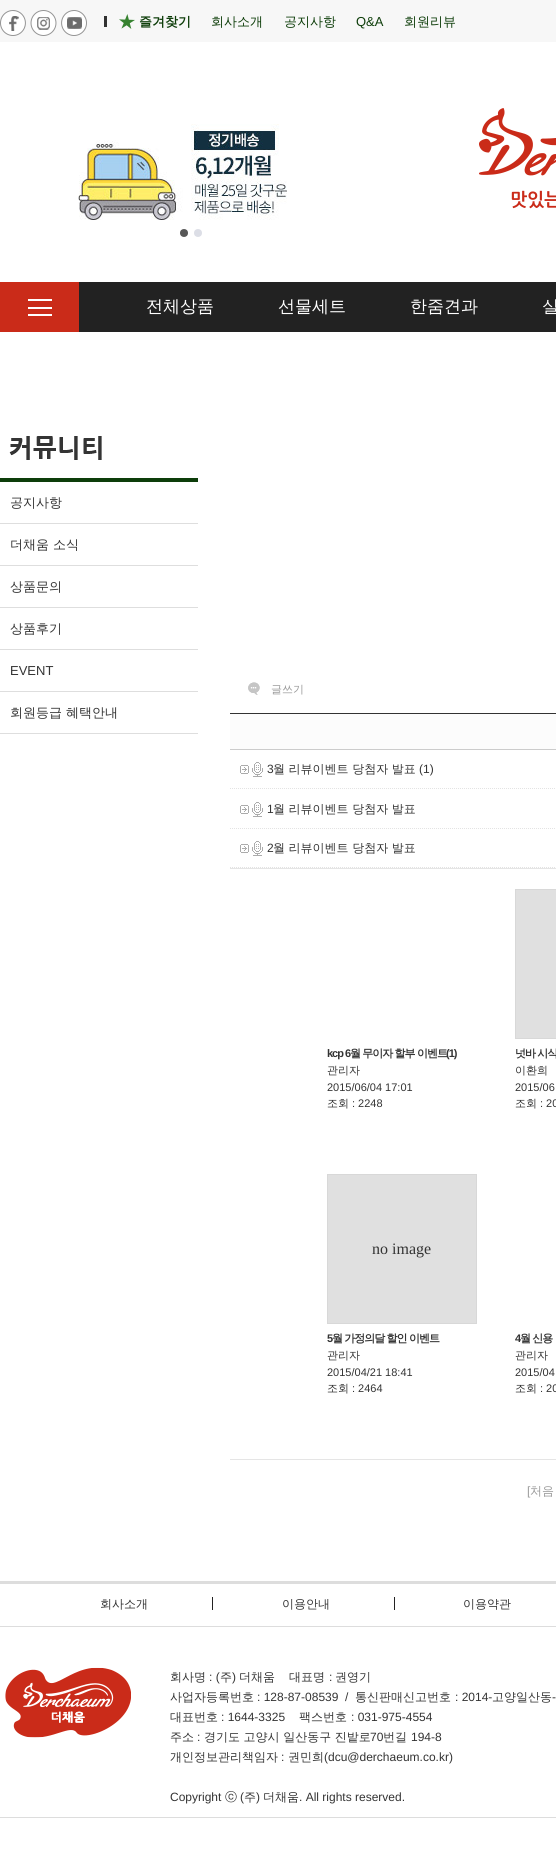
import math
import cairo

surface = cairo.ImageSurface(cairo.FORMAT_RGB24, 556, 1855)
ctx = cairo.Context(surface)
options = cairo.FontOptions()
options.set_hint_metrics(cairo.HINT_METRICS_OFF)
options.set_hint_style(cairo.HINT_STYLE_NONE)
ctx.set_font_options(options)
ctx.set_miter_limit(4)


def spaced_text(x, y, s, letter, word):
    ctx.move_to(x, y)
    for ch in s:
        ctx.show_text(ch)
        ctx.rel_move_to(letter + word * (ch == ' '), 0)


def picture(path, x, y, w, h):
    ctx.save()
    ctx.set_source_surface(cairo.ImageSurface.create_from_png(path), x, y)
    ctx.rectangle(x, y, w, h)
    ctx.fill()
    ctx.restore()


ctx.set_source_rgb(1, 1, 1)
ctx.paint()
ctx.set_source_rgb(0.965, 0.965, 0.965)
ctx.rectangle(0, 0, 556, 42)
ctx.fill()
ctx.set_source_rgb(0.192, 0.192, 0.192)
ctx.rectangle(104, 16, 3, 11)
ctx.fill()
picture("img1.png", 0, 10, 26, 26)
picture("img2.png", 30, 10, 27, 26)
picture("img3.png", 61, 10, 26, 26)
picture("img4.png", 119, 14, 16, 15)
ctx.select_font_face("WenQuanYi Zen Hei", cairo.FONT_SLANT_NORMAL, cairo.FONT_WEIGHT_BOLD)
ctx.set_font_size(13)
ctx.set_source_rgb(0.051, 0.239, 0.039)
ctx.move_to(139, 26)
ctx.show_text("즐겨찾기")
ctx.select_font_face("WenQuanYi Zen Hei Medium")
ctx.move_to(211, 26)
ctx.show_text("회사소개")
ctx.move_to(284, 26)
ctx.show_text("공지사항")
ctx.select_font_face("Liberation Sans")
ctx.move_to(356, 26)
ctx.show_text("Q&A")
ctx.select_font_face("WenQuanYi Zen Hei Medium")
ctx.move_to(404, 26)
ctx.show_text("회원리뷰")
picture("img5.png", 78, 124, 209, 96)
ctx.set_source_rgb(0.341, 0.341, 0.341)
ctx.arc(184, 233, 4, 0, 2 * math.pi)
ctx.fill()
ctx.set_source_rgb(0.863, 0.871, 0.902)
ctx.arc(198, 233, 4, 0, 2 * math.pi)
ctx.fill()
picture("img6.png", 479, 108, 77, 101)
ctx.set_source_rgb(0.133, 0.133, 0.133)
ctx.rectangle(79, 282, 477, 50)
ctx.fill()
ctx.set_source_rgb(0.792, 0.169, 0.098)
ctx.rectangle(0, 282, 79, 50)
ctx.fill()
picture("img7.png", 28, 299, 24, 17)
ctx.set_font_size(17)
ctx.set_source_rgb(1, 1, 1)
ctx.move_to(146, 312)
ctx.show_text("전체상품")
ctx.move_to(278, 312)
ctx.show_text("선물세트")
ctx.move_to(410, 312)
ctx.show_text("한줌견과")
ctx.move_to(542, 312)
ctx.show_text("실")
picture("img8.png", 0, 436, 198, 46)
ctx.set_source_rgb(0.871, 0.871, 0.871)
ctx.rectangle(0, 523, 198, 1)
ctx.fill()
ctx.set_font_size(13)
ctx.set_source_rgb(0.2, 0.2, 0.2)
ctx.move_to(10, 507)
ctx.show_text("공지사항")
ctx.set_source_rgb(0.871, 0.871, 0.871)
ctx.rectangle(0, 565, 198, 1)
ctx.fill()
ctx.set_source_rgb(0.2, 0.2, 0.2)
ctx.move_to(10, 549)
ctx.show_text("더채움 소식")
ctx.set_source_rgb(0.871, 0.871, 0.871)
ctx.rectangle(0, 607, 198, 1)
ctx.fill()
ctx.set_source_rgb(0.2, 0.2, 0.2)
ctx.move_to(10, 591)
ctx.show_text("상품문의")
ctx.set_source_rgb(0.871, 0.871, 0.871)
ctx.rectangle(0, 649, 198, 1)
ctx.fill()
ctx.set_source_rgb(0.2, 0.2, 0.2)
ctx.move_to(10, 633)
ctx.show_text("상품후기")
ctx.set_source_rgb(0.871, 0.871, 0.871)
ctx.rectangle(0, 691, 198, 1)
ctx.fill()
ctx.select_font_face("Liberation Sans")
ctx.set_source_rgb(0.2, 0.2, 0.2)
ctx.move_to(10, 675)
ctx.show_text("EVENT")
ctx.set_source_rgb(0.871, 0.871, 0.871)
ctx.rectangle(0, 733, 198, 1)
ctx.fill()
ctx.select_font_face("WenQuanYi Zen Hei Medium")
ctx.set_source_rgb(0.2, 0.2, 0.2)
ctx.move_to(10, 717)
ctx.show_text("회원등급 혜택안내")
picture("img9.png", 248, 682, 12, 13)
ctx.set_font_size(11)
ctx.set_source_rgb(0.6, 0.6, 0.6)
ctx.move_to(271, 693)
ctx.show_text("글쓰기")
ctx.set_source_rgb(0.988, 0.988, 0.988)
ctx.rectangle(230, 714, 326, 35)
ctx.fill()
ctx.set_source_rgb(0.2, 0.2, 0.2)
ctx.rectangle(230, 713, 326, 1)
ctx.fill()
ctx.set_source_rgb(0.8, 0.8, 0.8)
ctx.rectangle(230, 749, 326, 1)
ctx.fill()
picture("img10.png", 230, 788, 325, 1)
picture("img11.png", 240, 765, 9, 9)
picture("img12.png", 252, 762, 11, 15)
ctx.select_font_face("Liberation Sans")
ctx.set_font_size(12)
ctx.set_source_rgb(0.2, 0.2, 0.2)
ctx.move_to(267, 773)
ctx.show_text("3")
ctx.select_font_face("WenQuanYi Zen Hei Medium")
ctx.move_to(273, 773)
ctx.show_text("월 리뷰이벤트 당첨자 발표")
ctx.select_font_face("Liberation Sans")
ctx.move_to(419, 773)
ctx.show_text("(1)")
picture("img10.png", 230, 828, 325, 1)
picture("img11.png", 240, 805, 9, 9)
picture("img12.png", 252, 802, 11, 15)
ctx.move_to(267, 813)
ctx.show_text("1")
ctx.select_font_face("WenQuanYi Zen Hei Medium")
ctx.move_to(273, 813)
ctx.show_text("월 리뷰이벤트 당첨자 발표")
picture("img10.png", 230, 867, 325, 1)
picture("img11.png", 240, 844, 9, 9)
picture("img12.png", 252, 841, 11, 15)
ctx.select_font_face("Liberation Sans")
ctx.move_to(267, 852)
ctx.show_text("2")
ctx.select_font_face("WenQuanYi Zen Hei Medium")
ctx.move_to(273, 852)
ctx.show_text("월 리뷰이벤트 당첨자 발표")
ctx.set_source_rgb(0.898, 0.898, 0.898)
ctx.rectangle(230, 868, 326, 1)
ctx.fill()
ctx.rectangle(230, 1459, 326, 1)
ctx.fill()
ctx.select_font_face("Liberation Sans", cairo.FONT_SLANT_NORMAL, cairo.FONT_WEIGHT_BOLD)
ctx.set_font_size(11)
ctx.set_source_rgb(0.2, 0.2, 0.2)
spaced_text(327, 1057, "kcp 6", -1, 0)
ctx.select_font_face("WenQuanYi Zen Hei", cairo.FONT_SLANT_NORMAL, cairo.FONT_WEIGHT_BOLD)
spaced_text(350, 1057, "월 무이자 할부 이벤트", -1, 0)
ctx.select_font_face("Liberation Sans", cairo.FONT_SLANT_NORMAL, cairo.FONT_WEIGHT_BOLD)
spaced_text(446, 1057, "(1)", -1, 0)
ctx.select_font_face("WenQuanYi Zen Hei Medium")
ctx.move_to(327, 1074)
ctx.show_text("관리자")
ctx.select_font_face("Liberation Sans")
ctx.move_to(327, 1091)
ctx.show_text("2015/06/04 17:01")
ctx.select_font_face("WenQuanYi Zen Hei Medium")
ctx.move_to(327, 1107)
ctx.show_text("조회")
ctx.select_font_face("Liberation Sans")
ctx.move_to(352, 1107)
ctx.show_text(": 2248")
ctx.set_source_rgb(0.878, 0.878, 0.878)
ctx.rectangle(515.5, 889.5, 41, 149)
ctx.fill_preserve()
ctx.set_source_rgb(0.847, 0.847, 0.847)
ctx.set_line_width(1)
ctx.stroke()
ctx.select_font_face("WenQuanYi Zen Hei", cairo.FONT_SLANT_NORMAL, cairo.FONT_WEIGHT_BOLD)
ctx.set_source_rgb(0.2, 0.2, 0.2)
spaced_text(515, 1057, "넛바 시식", -1, 0)
ctx.select_font_face("WenQuanYi Zen Hei Medium")
ctx.move_to(515, 1074)
ctx.show_text("이환희")
ctx.select_font_face("Liberation Sans")
ctx.move_to(515, 1091)
ctx.show_text("2015/06")
ctx.select_font_face("WenQuanYi Zen Hei Medium")
ctx.move_to(515, 1107)
ctx.show_text("조회")
ctx.select_font_face("Liberation Sans")
ctx.move_to(540, 1107)
ctx.show_text(": 20")
ctx.set_source_rgb(0.878, 0.878, 0.878)
ctx.rectangle(327.5, 1174.5, 149, 149)
ctx.fill_preserve()
ctx.set_source_rgb(0.847, 0.847, 0.847)
ctx.stroke()
ctx.select_font_face("Liberation Serif")
ctx.set_font_size(16)
ctx.set_source_rgb(0.2, 0.2, 0.2)
ctx.move_to(372, 1254)
ctx.show_text("no image")
ctx.select_font_face("Liberation Sans", cairo.FONT_SLANT_NORMAL, cairo.FONT_WEIGHT_BOLD)
ctx.set_font_size(11)
spaced_text(327, 1342, "5", -1, 0)
ctx.select_font_face("WenQuanYi Zen Hei", cairo.FONT_SLANT_NORMAL, cairo.FONT_WEIGHT_BOLD)
spaced_text(332, 1342, "월 가정의달 할인 이벤트", -1, 0)
ctx.select_font_face("WenQuanYi Zen Hei Medium")
ctx.move_to(327, 1359)
ctx.show_text("관리자")
ctx.select_font_face("Liberation Sans")
ctx.move_to(327, 1376)
ctx.show_text("2015/04/21 18:41")
ctx.select_font_face("WenQuanYi Zen Hei Medium")
ctx.move_to(327, 1392)
ctx.show_text("조회")
ctx.select_font_face("Liberation Sans")
ctx.move_to(352, 1392)
ctx.show_text(": 2464")
ctx.select_font_face("Liberation Sans", cairo.FONT_SLANT_NORMAL, cairo.FONT_WEIGHT_BOLD)
spaced_text(515, 1342, "4", -1, 0)
ctx.select_font_face("WenQuanYi Zen Hei", cairo.FONT_SLANT_NORMAL, cairo.FONT_WEIGHT_BOLD)
spaced_text(520, 1342, "월 신용", -1, 0)
ctx.select_font_face("WenQuanYi Zen Hei Medium")
ctx.move_to(515, 1359)
ctx.show_text("관리자")
ctx.select_font_face("Liberation Sans")
ctx.move_to(515, 1376)
ctx.show_text("2015/04")
ctx.select_font_face("WenQuanYi Zen Hei Medium")
ctx.move_to(515, 1392)
ctx.show_text("조회")
ctx.select_font_face("Liberation Sans")
ctx.move_to(540, 1392)
ctx.show_text(": 20")
ctx.set_font_size(12)
ctx.set_source_rgb(0.6, 0.6, 0.6)
ctx.move_to(527, 1495)
ctx.show_text("[")
ctx.select_font_face("WenQuanYi Zen Hei Medium")
ctx.move_to(530, 1495)
ctx.show_text("처음")
picture("img13.png", 0, 1581, 556, 237)
ctx.set_source_rgb(0.137, 0.133, 0.133)
ctx.rectangle(212, 1597, 1, 13)
ctx.fill()
ctx.set_source_rgb(0.2, 0.2, 0.2)
ctx.move_to(100, 1608)
ctx.show_text("회사소개")
ctx.set_source_rgb(0.137, 0.133, 0.133)
ctx.rectangle(394, 1597, 1, 13)
ctx.fill()
ctx.set_source_rgb(0.2, 0.2, 0.2)
ctx.move_to(282, 1608)
ctx.show_text("이용안내")
ctx.move_to(463, 1608)
ctx.show_text("이용약관")
picture("img14.png", 5, 1667, 126, 71)
ctx.move_to(170, 1681)
ctx.show_text("회사명")
ctx.select_font_face("Liberation Sans")
ctx.move_to(209, 1681)
ctx.show_text(": (")
ctx.select_font_face("WenQuanYi Zen Hei Medium")
ctx.move_to(220, 1681)
ctx.show_text("주")
ctx.select_font_face("Liberation Sans")
ctx.move_to(232, 1681)
ctx.show_text(")")
ctx.select_font_face("WenQuanYi Zen Hei Medium")
ctx.move_to(239, 1681)
ctx.show_text("더채움")
ctx.move_to(289, 1681)
ctx.show_text("대표명")
ctx.select_font_face("Liberation Sans")
ctx.move_to(329, 1681)
ctx.show_text(":")
ctx.select_font_face("WenQuanYi Zen Hei Medium")
ctx.move_to(335, 1681)
ctx.show_text("권영기")
ctx.move_to(170, 1701)
ctx.show_text("사업자등록번호")
ctx.select_font_face("Liberation Sans")
ctx.move_to(257, 1701)
ctx.show_text(": 128-87-08539  /")
ctx.select_font_face("WenQuanYi Zen Hei Medium")
ctx.move_to(355, 1701)
ctx.show_text("통신판매신고번호")
ctx.select_font_face("Liberation Sans")
ctx.move_to(455, 1701)
ctx.show_text(": 2014-")
ctx.select_font_face("WenQuanYi Zen Hei Medium")
ctx.move_to(492, 1701)
ctx.show_text("고양일산동")
ctx.select_font_face("Liberation Sans")
ctx.move_to(552, 1701)
ctx.show_text("-")
ctx.select_font_face("WenQuanYi Zen Hei Medium")
ctx.move_to(170, 1721)
ctx.show_text("대표번호")
ctx.select_font_face("Liberation Sans")
ctx.move_to(221, 1721)
ctx.show_text(": 1644-3325")
ctx.select_font_face("WenQuanYi Zen Hei Medium")
ctx.move_to(299, 1721)
ctx.show_text("팩스번호")
ctx.select_font_face("Liberation Sans")
ctx.move_to(351, 1721)
ctx.show_text(": 031-975-4554")
ctx.select_font_face("WenQuanYi Zen Hei Medium")
ctx.move_to(170, 1741)
ctx.show_text("주소")
ctx.select_font_face("Liberation Sans")
ctx.move_to(197, 1741)
ctx.show_text(":")
ctx.select_font_face("WenQuanYi Zen Hei Medium")
ctx.move_to(204, 1741)
ctx.show_text("경기도 고양시 일산동구 진밭로")
ctx.select_font_face("Liberation Sans")
ctx.move_to(370, 1741)
ctx.show_text("70")
ctx.select_font_face("WenQuanYi Zen Hei Medium")
ctx.move_to(383, 1741)
ctx.show_text("번길")
ctx.select_font_face("Liberation Sans")
ctx.move_to(411, 1741)
ctx.show_text("194-8")
ctx.select_font_face("WenQuanYi Zen Hei Medium")
ctx.move_to(170, 1761)
ctx.show_text("개인정보관리책임자")
ctx.select_font_face("Liberation Sans")
ctx.move_to(281, 1761)
ctx.show_text(":")
ctx.select_font_face("WenQuanYi Zen Hei Medium")
ctx.move_to(288, 1761)
ctx.show_text("권민희")
ctx.select_font_face("Liberation Sans")
ctx.move_to(324, 1761)
ctx.show_text("(dcu@derchaeum.co.kr)")
ctx.move_to(170, 1801)
ctx.show_text("Copyright")
ctx.select_font_face("WenQuanYi Zen Hei Medium")
ctx.move_to(225, 1801)
ctx.show_text("ⓒ")
ctx.select_font_face("Liberation Sans")
ctx.move_to(240, 1801)
ctx.show_text("(")
ctx.select_font_face("WenQuanYi Zen Hei Medium")
ctx.move_to(244, 1801)
ctx.show_text("주")
ctx.select_font_face("Liberation Sans")
ctx.move_to(256, 1801)
ctx.show_text(")")
ctx.select_font_face("WenQuanYi Zen Hei Medium")
ctx.move_to(263, 1801)
ctx.show_text("더채움")
ctx.select_font_face("Liberation Sans")
ctx.move_to(299, 1801)
ctx.show_text(". All rights reserved.")
surface.write_to_png("page.png")
